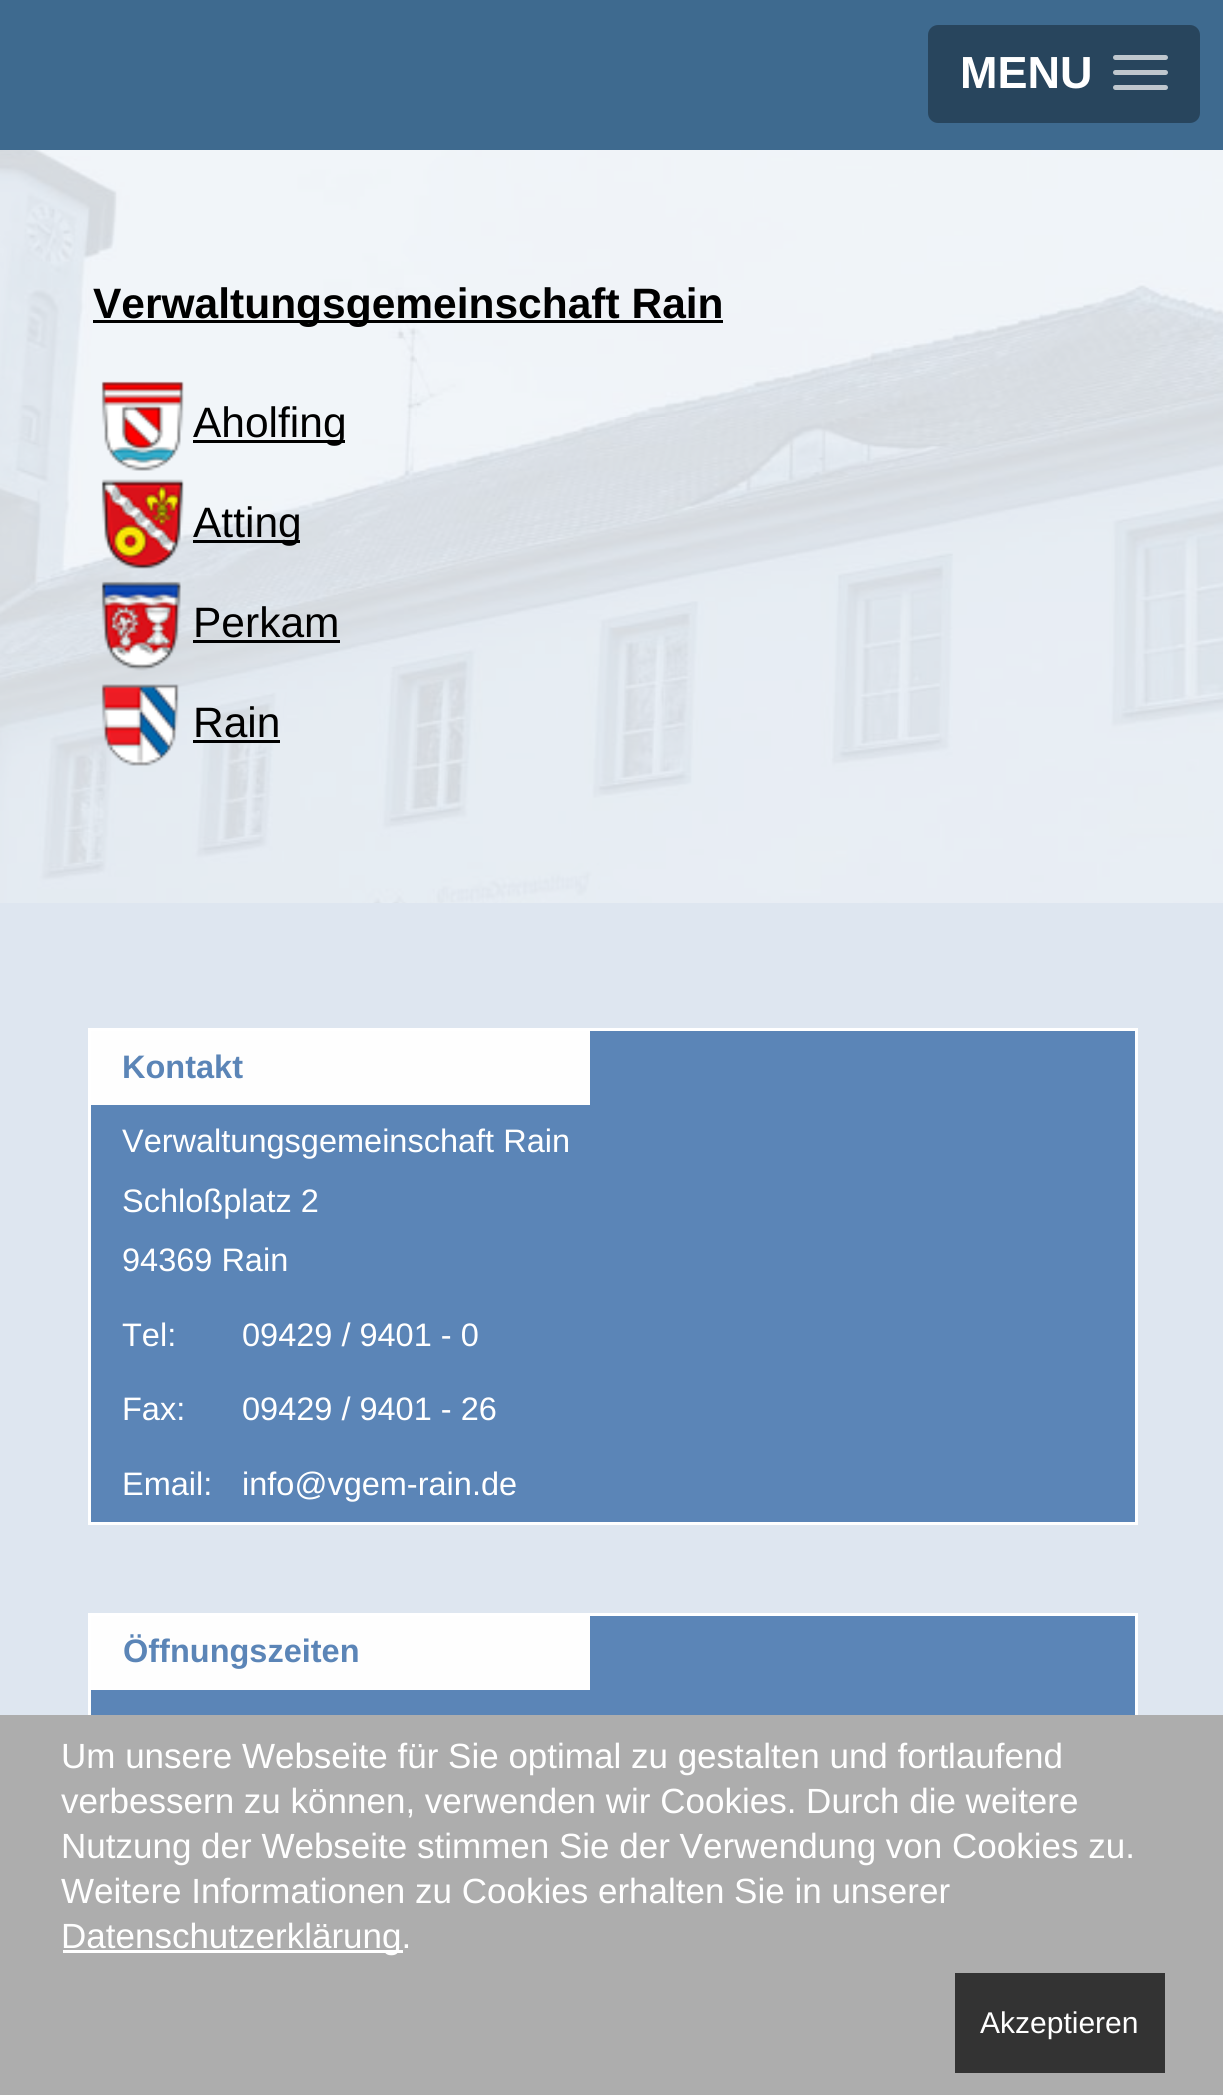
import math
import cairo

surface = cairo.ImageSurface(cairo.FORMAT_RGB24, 1223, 2095)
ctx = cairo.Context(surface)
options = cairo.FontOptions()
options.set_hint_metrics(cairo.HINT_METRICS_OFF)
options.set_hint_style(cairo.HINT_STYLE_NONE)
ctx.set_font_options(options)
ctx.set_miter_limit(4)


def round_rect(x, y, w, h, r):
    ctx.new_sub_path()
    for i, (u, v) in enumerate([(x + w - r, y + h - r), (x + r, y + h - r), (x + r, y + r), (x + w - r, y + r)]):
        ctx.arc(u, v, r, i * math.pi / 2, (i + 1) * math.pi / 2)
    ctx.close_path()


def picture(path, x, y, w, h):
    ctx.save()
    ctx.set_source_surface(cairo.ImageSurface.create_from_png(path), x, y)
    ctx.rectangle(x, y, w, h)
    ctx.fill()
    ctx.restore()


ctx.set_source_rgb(0.243, 0.416, 0.561)
ctx.paint()
ctx.set_source_rgb(0.157, 0.271, 0.365)
round_rect(928, 25, 272, 98, 10)
ctx.fill()
ctx.select_font_face("Liberation Sans", cairo.FONT_SLANT_NORMAL, cairo.FONT_WEIGHT_BOLD)
ctx.set_font_size(45)
ctx.set_source_rgb(1, 1, 1)
ctx.move_to(960, 88)
ctx.show_text("MENU")
ctx.set_source_rgb(0.749, 0.78, 0.808)
round_rect(1113, 55, 55, 5, 2.5)
ctx.fill()
round_rect(1113, 70, 55, 5, 2.5)
ctx.fill()
round_rect(1113, 85, 55, 5, 2.5)
ctx.fill()
picture("img1.png", 0, 150, 1223, 753)
ctx.set_source_rgba(1, 1, 1, 0.7)
ctx.rectangle(0, 150, 1223, 753)
ctx.fill()
ctx.set_source_rgb(0, 0, 0)
ctx.rectangle(93, 320, 630, 3)
ctx.fill()
ctx.set_font_size(42.5)
ctx.move_to(93, 318)
ctx.show_text("Verwaltungsgemeinschaft Rain")
picture("img2.png", 101, 381, 83, 90)
ctx.rectangle(193, 440, 152, 3)
ctx.fill()
ctx.select_font_face("Liberation Sans")
ctx.move_to(193, 437)
ctx.show_text("Aholfing")
picture("img3.png", 101, 479, 83, 90)
ctx.rectangle(193, 540, 107, 3)
ctx.fill()
ctx.move_to(193, 537)
ctx.show_text("Atting")
picture("img4.png", 101, 581, 80, 90)
ctx.move_to(193, 637)
ctx.show_text("Perkam")
ctx.rectangle(193, 640, 147, 3)
ctx.fill()
picture("img5.png", 101, 684, 78, 82)
ctx.move_to(193, 737)
ctx.show_text("Rain")
ctx.rectangle(193, 740, 87, 3)
ctx.fill()
ctx.set_source_rgb(0.871, 0.902, 0.941)
ctx.rectangle(0, 903, 1223, 812)
ctx.fill()
ctx.set_source_rgb(0.357, 0.522, 0.718)
ctx.rectangle(89.5, 1029.5, 1047, 494)
ctx.fill_preserve()
ctx.set_source_rgb(1, 1, 1)
ctx.set_line_width(3)
ctx.stroke()
ctx.set_source_rgb(0.996, 0.996, 0.996)
ctx.rectangle(91, 1031, 499, 74)
ctx.fill()
ctx.select_font_face("Liberation Sans", cairo.FONT_SLANT_NORMAL, cairo.FONT_WEIGHT_BOLD)
ctx.set_font_size(32.5)
ctx.set_source_rgb(0.357, 0.522, 0.718)
ctx.move_to(122, 1078)
ctx.show_text("Kontakt")
ctx.select_font_face("Liberation Sans")
ctx.set_source_rgb(1, 1, 1)
ctx.move_to(122, 1152)
ctx.show_text("Verwaltungsgemeinschaft Rain")
ctx.move_to(122, 1212)
ctx.show_text("Schloßplatz 2")
ctx.move_to(122, 1271)
ctx.show_text("94369 Rain")
ctx.move_to(122, 1346)
ctx.show_text("Tel:")
ctx.move_to(242, 1346)
ctx.show_text("09429 / 9401 - 0")
ctx.move_to(122, 1420)
ctx.show_text("Fax:")
ctx.move_to(242, 1420)
ctx.show_text("09429 / 9401 - 26")
ctx.move_to(122, 1495)
ctx.show_text("Email:")
ctx.move_to(242, 1495)
ctx.show_text("info@vgem-rain.de")
ctx.set_source_rgb(0.357, 0.522, 0.718)
ctx.rectangle(91, 1616, 1044, 99)
ctx.fill()
ctx.rectangle(89.5, 1614.5, 1047, 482)
ctx.set_source_rgb(1, 1, 1)
ctx.stroke()
ctx.set_source_rgb(0.996, 0.996, 0.996)
ctx.rectangle(91, 1616, 499, 74)
ctx.fill()
ctx.select_font_face("Liberation Sans", cairo.FONT_SLANT_NORMAL, cairo.FONT_WEIGHT_BOLD)
ctx.set_source_rgb(0.357, 0.522, 0.718)
ctx.move_to(123, 1662)
ctx.show_text("Öffnungszeiten")
ctx.set_source_rgb(0.678, 0.678, 0.678)
ctx.rectangle(0, 1715, 1223, 380)
ctx.fill()
ctx.select_font_face("Liberation Sans")
ctx.set_font_size(35)
ctx.set_source_rgb(1, 1, 1)
ctx.move_to(61, 1768)
ctx.show_text("Um unsere Webseite für Sie optimal zu gestalten und fortlaufend")
ctx.move_to(61, 1813)
ctx.show_text("verbessern zu können, verwenden wir Cookies. Durch die weitere")
ctx.move_to(61, 1858)
ctx.show_text("Nutzung der Webseite stimmen Sie der Verwendung von Cookies zu.")
ctx.move_to(61, 1903)
ctx.show_text("Weitere Informationen zu Cookies erhalten Sie in unserer")
ctx.rectangle(63, 1950, 340, 3)
ctx.fill()
ctx.move_to(61, 1948)
ctx.show_text("Datenschutzerklärung.")
ctx.set_source_rgb(0.2, 0.2, 0.2)
ctx.rectangle(955, 1973, 210, 100)
ctx.fill()
ctx.set_font_size(30)
ctx.set_source_rgb(1, 1, 1)
ctx.move_to(980, 2033)
ctx.show_text("Akzeptieren")
surface.write_to_png("page.png")
